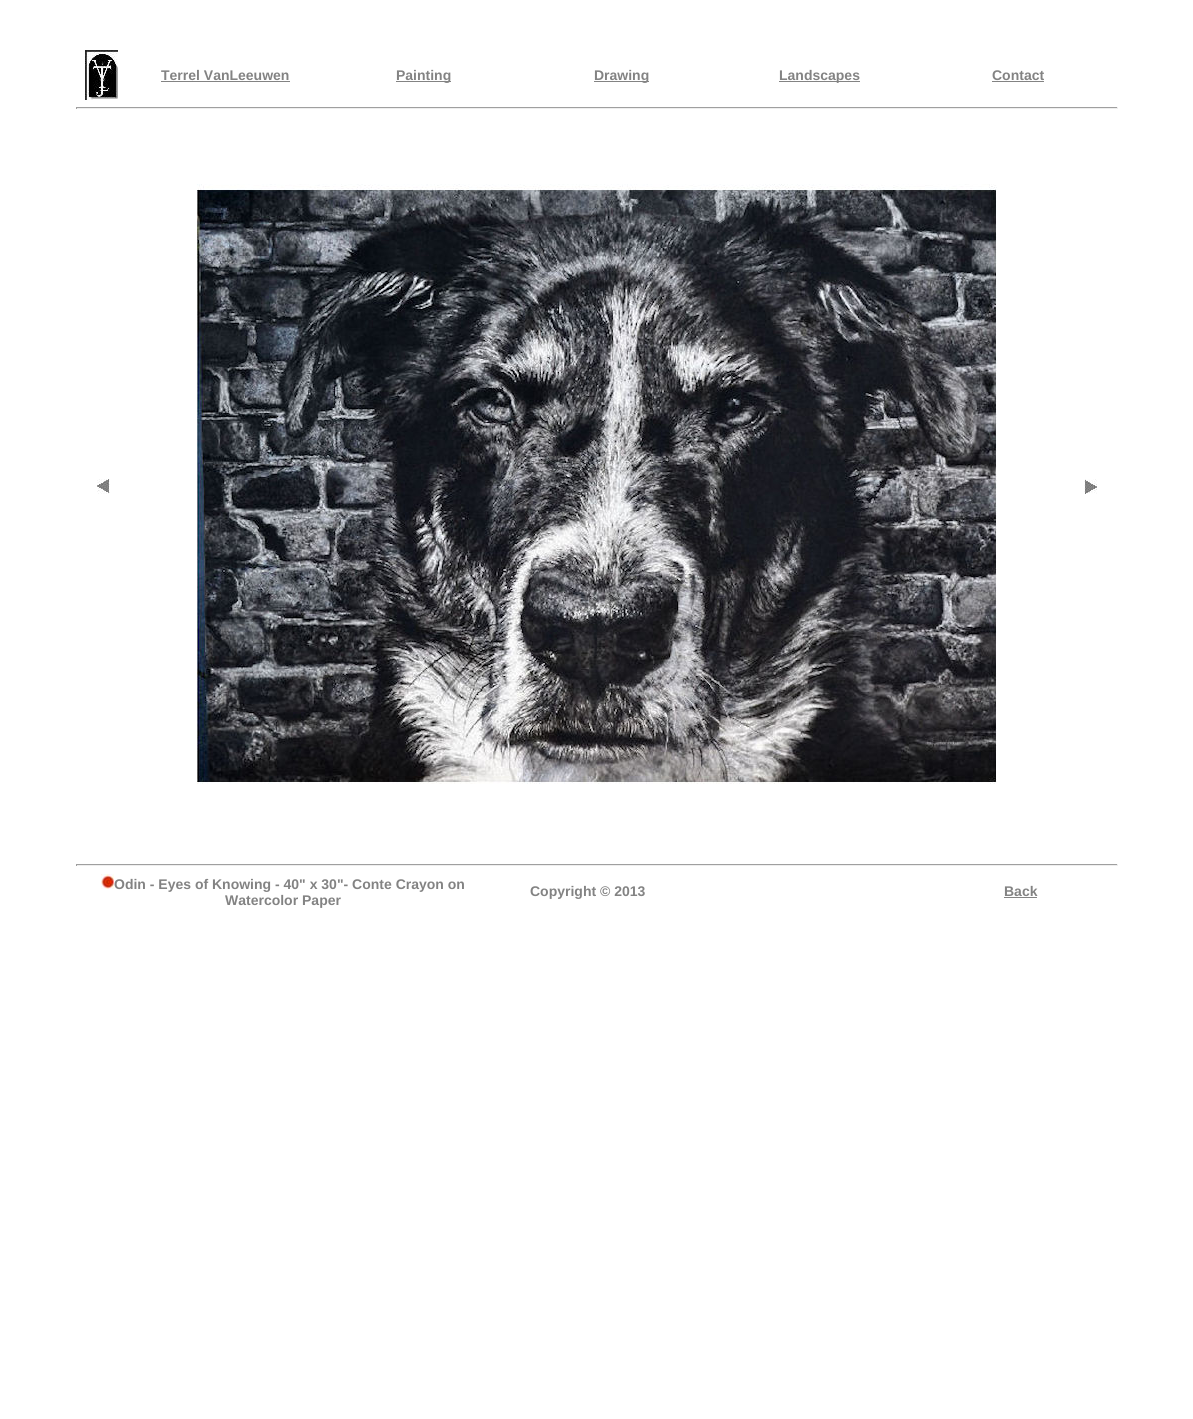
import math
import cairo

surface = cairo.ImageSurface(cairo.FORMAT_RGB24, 1193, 1419)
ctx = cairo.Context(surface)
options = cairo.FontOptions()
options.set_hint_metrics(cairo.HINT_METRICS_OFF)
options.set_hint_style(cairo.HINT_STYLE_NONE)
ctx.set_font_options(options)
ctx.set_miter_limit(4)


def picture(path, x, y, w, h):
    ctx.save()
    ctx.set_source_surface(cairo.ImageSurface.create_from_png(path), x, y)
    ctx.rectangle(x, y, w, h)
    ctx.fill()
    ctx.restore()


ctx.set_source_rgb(1, 1, 1)
ctx.paint()
picture("img1.png", 85, 50, 33, 50)
ctx.select_font_face("Liberation Sans", cairo.FONT_SLANT_NORMAL, cairo.FONT_WEIGHT_BOLD)
ctx.set_font_size(14)
ctx.set_source_rgb(0.514, 0.514, 0.514)
ctx.move_to(161, 80)
ctx.show_text("Terrel VanLeeuwen")
ctx.rectangle(161, 81, 129, 1)
ctx.fill()
ctx.rectangle(396, 81, 55, 1)
ctx.fill()
ctx.move_to(396, 80)
ctx.show_text("Painting")
ctx.rectangle(594, 81, 55, 1)
ctx.fill()
ctx.move_to(594, 80)
ctx.show_text("Drawing")
ctx.rectangle(779, 81, 81, 1)
ctx.fill()
ctx.move_to(779, 80)
ctx.show_text("Landscapes")
ctx.move_to(992, 80)
ctx.show_text("Contact")
ctx.rectangle(992, 81, 52, 1)
ctx.fill()
ctx.set_source_rgb(0.624, 0.624, 0.624)
ctx.rectangle(76, 107, 1042, 1)
ctx.fill()
ctx.set_source_rgb(0.933, 0.933, 0.933)
ctx.rectangle(1117, 107, 1, 2)
ctx.fill()
ctx.rectangle(76, 108, 1042, 1)
ctx.fill()
ctx.set_source_rgb(0.624, 0.624, 0.624)
ctx.rectangle(76, 107, 1, 2)
ctx.fill()
picture("img2.png", 97, 479, 13, 15)
picture("img3.png", 197, 184, 800, 600)
picture("img4.png", 1084, 479, 13, 15)
ctx.rectangle(76, 864, 1042, 1)
ctx.fill()
ctx.set_source_rgb(0.933, 0.933, 0.933)
ctx.rectangle(1117, 864, 1, 2)
ctx.fill()
ctx.rectangle(76, 865, 1042, 1)
ctx.fill()
ctx.set_source_rgb(0.624, 0.624, 0.624)
ctx.rectangle(76, 864, 1, 2)
ctx.fill()
picture("img5.png", 101, 874, 13, 15)
ctx.set_source_rgb(0.514, 0.514, 0.514)
ctx.move_to(114, 889)
ctx.show_text("Odin - Eyes of Knowing - 40\" x 30\"- Conte Crayon on")
ctx.move_to(225, 905)
ctx.show_text("Watercolor Paper")
ctx.move_to(530, 896)
ctx.show_text("Copyright © 2013")
ctx.move_to(1004, 896)
ctx.show_text("Back")
ctx.rectangle(1004, 897, 33, 1)
ctx.fill()
surface.write_to_png("page.png")
